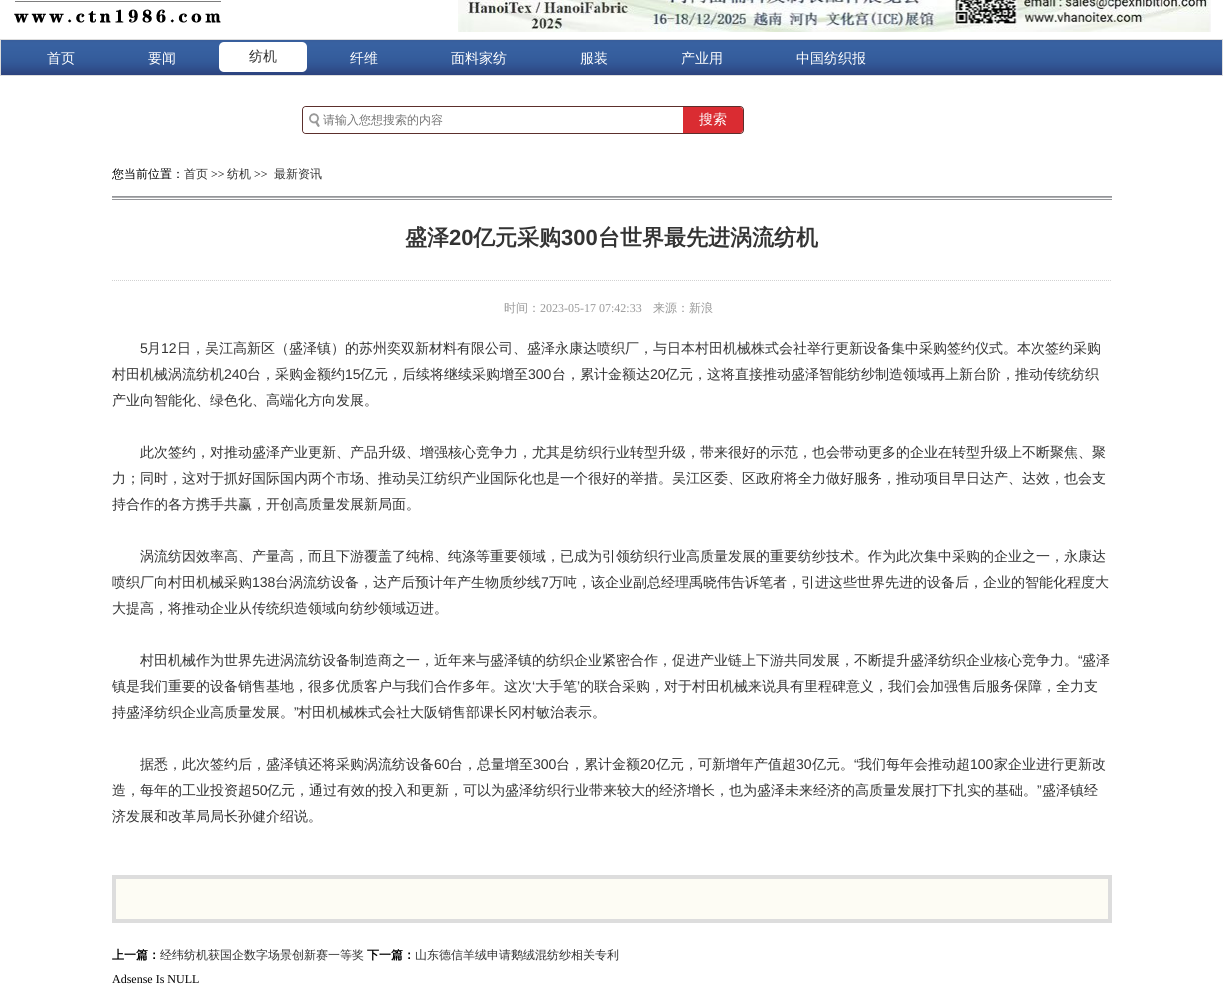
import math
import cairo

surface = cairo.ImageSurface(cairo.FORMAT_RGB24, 1223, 999)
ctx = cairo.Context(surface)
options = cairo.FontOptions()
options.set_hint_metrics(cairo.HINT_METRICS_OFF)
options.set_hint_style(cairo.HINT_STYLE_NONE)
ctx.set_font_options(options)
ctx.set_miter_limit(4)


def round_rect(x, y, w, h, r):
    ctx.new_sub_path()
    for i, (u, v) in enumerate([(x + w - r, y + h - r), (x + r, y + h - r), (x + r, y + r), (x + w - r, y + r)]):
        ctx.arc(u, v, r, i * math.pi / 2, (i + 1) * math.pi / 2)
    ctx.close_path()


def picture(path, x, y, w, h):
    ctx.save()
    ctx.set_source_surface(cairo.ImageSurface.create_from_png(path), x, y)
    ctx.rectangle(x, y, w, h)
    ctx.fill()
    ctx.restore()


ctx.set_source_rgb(1, 1, 1)
ctx.paint()
picture("img1.png", 14, 0, 207, 23)
picture("img2.png", 458, 0, 753, 32)
picture("img3.png", 1, 40, 1221, 35)
ctx.rectangle(0.5, 39.5, 1222, 36)
ctx.set_source_rgb(0.867, 0.867, 0.867)
ctx.set_line_width(1)
ctx.stroke()
ctx.select_font_face("WenQuanYi Zen Hei Medium")
ctx.set_font_size(14)
ctx.set_source_rgb(1, 1, 1)
ctx.move_to(47, 63)
ctx.show_text("首页")
ctx.move_to(148, 63)
ctx.show_text("要闻")
round_rect(219, 42, 88, 30, 5)
ctx.fill()
ctx.set_source_rgb(0.2, 0.2, 0.2)
ctx.move_to(249, 61)
ctx.show_text("纺机")
ctx.set_source_rgb(1, 1, 1)
ctx.move_to(350, 63)
ctx.show_text("纤维")
ctx.move_to(451, 63)
ctx.show_text("面料家纺")
ctx.move_to(580, 63)
ctx.show_text("服装")
ctx.move_to(681, 63)
ctx.show_text("产业用")
ctx.move_to(796, 63)
ctx.show_text("中国纺织报")
round_rect(302.5, 106.5, 441, 27, 3.5)
ctx.set_source_rgb(0.361, 0.184, 0.173)
ctx.stroke()
ctx.set_source_rgb(1, 1, 1)
ctx.new_path()
ctx.move_to(306, 107)
ctx.line_to(683, 107)
ctx.line_to(683, 133)
ctx.line_to(306, 133)
ctx.curve_to(304.5, 133, 303, 131.5, 303, 130)
ctx.line_to(303, 110)
ctx.curve_to(303, 108.5, 304.5, 107, 306, 107)
ctx.close_path()
ctx.fill()
picture("img4.png", 309, 113, 11, 14)
ctx.set_font_size(12)
ctx.set_source_rgb(0.459, 0.459, 0.459)
ctx.move_to(323, 124)
ctx.show_text("请输入您想搜索的内容")
ctx.set_source_rgb(0.855, 0.173, 0.196)
ctx.new_path()
ctx.move_to(683, 107)
ctx.line_to(740, 107)
ctx.curve_to(741.5, 107, 743, 108.5, 743, 110)
ctx.line_to(743, 130)
ctx.curve_to(743, 131.5, 741.5, 133, 740, 133)
ctx.line_to(683, 133)
ctx.close_path()
ctx.fill()
ctx.set_font_size(14)
ctx.set_source_rgb(1, 1, 1)
ctx.move_to(699, 124)
ctx.show_text("搜索")
ctx.set_font_size(12)
ctx.set_source_rgb(0, 0, 0)
ctx.move_to(112, 178)
ctx.show_text("您当前位置：")
ctx.set_source_rgb(0.2, 0.2, 0.2)
ctx.move_to(184, 178)
ctx.show_text("首页")
ctx.select_font_face("Liberation Serif")
ctx.set_source_rgb(0, 0, 0)
ctx.move_to(211, 178)
ctx.show_text(">>")
ctx.select_font_face("WenQuanYi Zen Hei Medium")
ctx.set_source_rgb(0.2, 0.2, 0.2)
ctx.move_to(227, 178)
ctx.show_text("纺机")
ctx.select_font_face("Liberation Serif")
ctx.set_source_rgb(0, 0, 0)
ctx.move_to(254, 178)
ctx.show_text(">>")
ctx.select_font_face("WenQuanYi Zen Hei Medium")
ctx.set_source_rgb(0.2, 0.2, 0.2)
ctx.move_to(274, 178)
ctx.show_text("最新资讯")
picture("img5.png", 112, 196, 1000, 4)
ctx.new_path()
ctx.move_to(112, 280.5)
ctx.line_to(1112, 280.5)
ctx.set_source_rgb(0.824, 0.824, 0.824)
ctx.set_dash([1, 1])
ctx.stroke()
ctx.select_font_face("WenQuanYi Zen Hei", cairo.FONT_SLANT_NORMAL, cairo.FONT_WEIGHT_BOLD)
ctx.set_font_size(22)
ctx.set_source_rgb(0.2, 0.2, 0.2)
ctx.move_to(405, 245)
ctx.show_text("盛泽")
ctx.select_font_face("Liberation Sans", cairo.FONT_SLANT_NORMAL, cairo.FONT_WEIGHT_BOLD)
ctx.move_to(449, 245)
ctx.show_text("20")
ctx.select_font_face("WenQuanYi Zen Hei", cairo.FONT_SLANT_NORMAL, cairo.FONT_WEIGHT_BOLD)
ctx.move_to(473, 245)
ctx.show_text("亿元采购")
ctx.select_font_face("Liberation Sans", cairo.FONT_SLANT_NORMAL, cairo.FONT_WEIGHT_BOLD)
ctx.move_to(561, 245)
ctx.show_text("300")
ctx.select_font_face("WenQuanYi Zen Hei", cairo.FONT_SLANT_NORMAL, cairo.FONT_WEIGHT_BOLD)
ctx.move_to(598, 245)
ctx.show_text("台世界最先进涡流纺机")
ctx.select_font_face("WenQuanYi Zen Hei Medium")
ctx.set_font_size(12)
ctx.set_source_rgb(0.6, 0.6, 0.6)
ctx.move_to(504, 312)
ctx.show_text("时间：")
ctx.select_font_face("Liberation Serif")
ctx.move_to(540, 312)
ctx.show_text("2023-05-17 07:42:33")
ctx.select_font_face("WenQuanYi Zen Hei Medium")
ctx.move_to(653, 312)
ctx.show_text("来源：新浪")
ctx.select_font_face("Liberation Sans")
ctx.set_font_size(14)
ctx.set_source_rgb(0.2, 0.2, 0.2)
ctx.move_to(140, 353)
ctx.show_text("5")
ctx.select_font_face("WenQuanYi Zen Hei Medium")
ctx.move_to(147, 353)
ctx.show_text("月")
ctx.select_font_face("Liberation Sans")
ctx.move_to(161, 353)
ctx.show_text("12")
ctx.select_font_face("WenQuanYi Zen Hei Medium")
ctx.move_to(177, 353)
ctx.show_text("日，吴江高新区（盛泽镇）的苏州奕双新材料有限公司、盛泽永康达喷织厂，与日本村田机械株式会社举行更新设备集中采购签约仪式。本次签约采购")
ctx.move_to(112, 379)
ctx.show_text("村田机械涡流纺机")
ctx.select_font_face("Liberation Sans")
ctx.move_to(224, 379)
ctx.show_text("240")
ctx.select_font_face("WenQuanYi Zen Hei Medium")
ctx.move_to(247, 379)
ctx.show_text("台，采购金额约")
ctx.select_font_face("Liberation Sans")
ctx.move_to(345, 379)
ctx.show_text("15")
ctx.select_font_face("WenQuanYi Zen Hei Medium")
ctx.move_to(360, 379)
ctx.show_text("亿元，后续将继续采购增至")
ctx.select_font_face("Liberation Sans")
ctx.move_to(528, 379)
ctx.show_text("300")
ctx.select_font_face("WenQuanYi Zen Hei Medium")
ctx.move_to(552, 379)
ctx.show_text("台，累计金额达")
ctx.select_font_face("Liberation Sans")
ctx.move_to(650, 379)
ctx.show_text("20")
ctx.select_font_face("WenQuanYi Zen Hei Medium")
ctx.move_to(665, 379)
ctx.show_text("亿元，这将直接推动盛泽智能纺纱制造领域再上新台阶，推动传统纺织")
ctx.move_to(112, 405)
ctx.show_text("产业向智能化、绿色化、高端化方向发展。")
ctx.move_to(140, 457)
ctx.show_text("此次签约，对推动盛泽产业更新、产品升级、增强核心竞争力，尤其是纺织行业转型升级，带来很好的示范，也会带动更多的企业在转型升级上不断聚焦、聚")
ctx.move_to(112, 483)
ctx.show_text("力；同时，这对于抓好国际国内两个市场、推动吴江纺织产业国际化也是一个很好的举措。吴江区委、区政府将全力做好服务，推动项目早日达产、达效，也会支")
ctx.move_to(112, 509)
ctx.show_text("持合作的各方携手共赢，开创高质量发展新局面。")
ctx.move_to(140, 561)
ctx.show_text("涡流纺因效率高、产量高，而且下游覆盖了纯棉、纯涤等重要领域，已成为引领纺织行业高质量发展的重要纺纱技术。作为此次集中采购的企业之一，永康达")
ctx.move_to(112, 587)
ctx.show_text("喷织厂向村田机械采购")
ctx.select_font_face("Liberation Sans")
ctx.move_to(252, 587)
ctx.show_text("138")
ctx.select_font_face("WenQuanYi Zen Hei Medium")
ctx.move_to(275, 587)
ctx.show_text("台涡流纺设备，达产后预计年产生物质纱线")
ctx.select_font_face("Liberation Sans")
ctx.move_to(541, 587)
ctx.show_text("7")
ctx.select_font_face("WenQuanYi Zen Hei Medium")
ctx.move_to(549, 587)
ctx.show_text("万吨，该企业副总经理禹晓伟告诉笔者，引进这些世界先进的设备后，企业的智能化程度大")
ctx.move_to(112, 613)
ctx.show_text("大提高，将推动企业从传统织造领域向纺纱领域迈进。")
ctx.move_to(140, 665)
ctx.show_text("村田机械作为世界先进涡流纺设备制造商之一，近年来与盛泽镇的纺织企业紧密合作，促进产业链上下游共同发展，不断提升盛泽纺织企业核心竞争力。")
ctx.select_font_face("Liberation Sans")
ctx.move_to(1078, 665)
ctx.show_text("“")
ctx.select_font_face("WenQuanYi Zen Hei Medium")
ctx.move_to(1082, 665)
ctx.show_text("盛泽")
ctx.move_to(112, 691)
ctx.show_text("镇是我们重要的设备销售基地，很多优质客户与我们合作多年。这次")
ctx.select_font_face("Liberation Sans")
ctx.move_to(532, 691)
ctx.show_text("‘")
ctx.select_font_face("WenQuanYi Zen Hei Medium")
ctx.move_to(535, 691)
ctx.show_text("大手笔")
ctx.select_font_face("Liberation Sans")
ctx.move_to(577, 691)
ctx.show_text("’")
ctx.select_font_face("WenQuanYi Zen Hei Medium")
ctx.move_to(580, 691)
ctx.show_text("的联合采购，对于村田机械来说具有里程碑意义，我们会加强售后服务保障，全力支")
ctx.move_to(112, 717)
ctx.show_text("持盛泽纺织企业高质量发展。")
ctx.select_font_face("Liberation Sans")
ctx.move_to(294, 717)
ctx.show_text("”")
ctx.select_font_face("WenQuanYi Zen Hei Medium")
ctx.move_to(298, 717)
ctx.show_text("村田机械株式会社大阪销售部课长冈村敏治表示。")
ctx.move_to(140, 769)
ctx.show_text("据悉，此次签约后，盛泽镇还将采购涡流纺设备")
ctx.select_font_face("Liberation Sans")
ctx.move_to(434, 769)
ctx.show_text("60")
ctx.select_font_face("WenQuanYi Zen Hei Medium")
ctx.move_to(449, 769)
ctx.show_text("台，总量增至")
ctx.select_font_face("Liberation Sans")
ctx.move_to(533, 769)
ctx.show_text("300")
ctx.select_font_face("WenQuanYi Zen Hei Medium")
ctx.move_to(556, 769)
ctx.show_text("台，累计金额")
ctx.select_font_face("Liberation Sans")
ctx.move_to(640, 769)
ctx.show_text("20")
ctx.select_font_face("WenQuanYi Zen Hei Medium")
ctx.move_to(656, 769)
ctx.show_text("亿元，可新增年产值超")
ctx.select_font_face("Liberation Sans")
ctx.move_to(796, 769)
ctx.show_text("30")
ctx.select_font_face("WenQuanYi Zen Hei Medium")
ctx.move_to(812, 769)
ctx.show_text("亿元。")
ctx.select_font_face("Liberation Sans")
ctx.move_to(854, 769)
ctx.show_text("“")
ctx.select_font_face("WenQuanYi Zen Hei Medium")
ctx.move_to(858, 769)
ctx.show_text("我们每年会推动超")
ctx.select_font_face("Liberation Sans")
ctx.move_to(970, 769)
ctx.show_text("100")
ctx.select_font_face("WenQuanYi Zen Hei Medium")
ctx.move_to(994, 769)
ctx.show_text("家企业进行更新改")
ctx.move_to(112, 795)
ctx.show_text("造，每年的工业投资超")
ctx.select_font_face("Liberation Sans")
ctx.move_to(252, 795)
ctx.show_text("50")
ctx.select_font_face("WenQuanYi Zen Hei Medium")
ctx.move_to(267, 795)
ctx.show_text("亿元，通过有效的投入和更新，可以为盛泽纺织行业带来较大的经济增长，也为盛泽未来经济的高质量发展打下扎实的基础。")
ctx.select_font_face("Liberation Sans")
ctx.move_to(1037, 795)
ctx.show_text("”")
ctx.select_font_face("WenQuanYi Zen Hei Medium")
ctx.move_to(1042, 795)
ctx.show_text("盛泽镇经")
ctx.move_to(112, 821)
ctx.show_text("济发展和改革局局长孙健介绍说。")
ctx.set_source_rgb(0.992, 0.988, 0.957)
ctx.rectangle(114, 877, 996, 44)
ctx.fill_preserve()
ctx.set_source_rgb(0.867, 0.867, 0.867)
ctx.set_line_width(4)
ctx.set_dash([])
ctx.stroke()
ctx.select_font_face("WenQuanYi Zen Hei", cairo.FONT_SLANT_NORMAL, cairo.FONT_WEIGHT_BOLD)
ctx.set_font_size(12)
ctx.set_source_rgb(0, 0, 0)
ctx.move_to(112, 959)
ctx.show_text("上一篇：")
ctx.select_font_face("WenQuanYi Zen Hei Medium")
ctx.set_source_rgb(0.2, 0.2, 0.2)
ctx.move_to(160, 959)
ctx.show_text("经纬纺机获国企数字场景创新赛一等奖")
ctx.select_font_face("WenQuanYi Zen Hei", cairo.FONT_SLANT_NORMAL, cairo.FONT_WEIGHT_BOLD)
ctx.set_source_rgb(0, 0, 0)
ctx.move_to(367, 959)
ctx.show_text("下一篇：")
ctx.select_font_face("WenQuanYi Zen Hei Medium")
ctx.set_source_rgb(0.2, 0.2, 0.2)
ctx.move_to(415, 959)
ctx.show_text("山东德信羊绒申请鹅绒混纺纱相关专利")
ctx.select_font_face("Liberation Serif")
ctx.set_source_rgb(0, 0, 0)
ctx.move_to(112, 983)
ctx.show_text("Adsense Is NULL")
surface.write_to_png("page.png")
